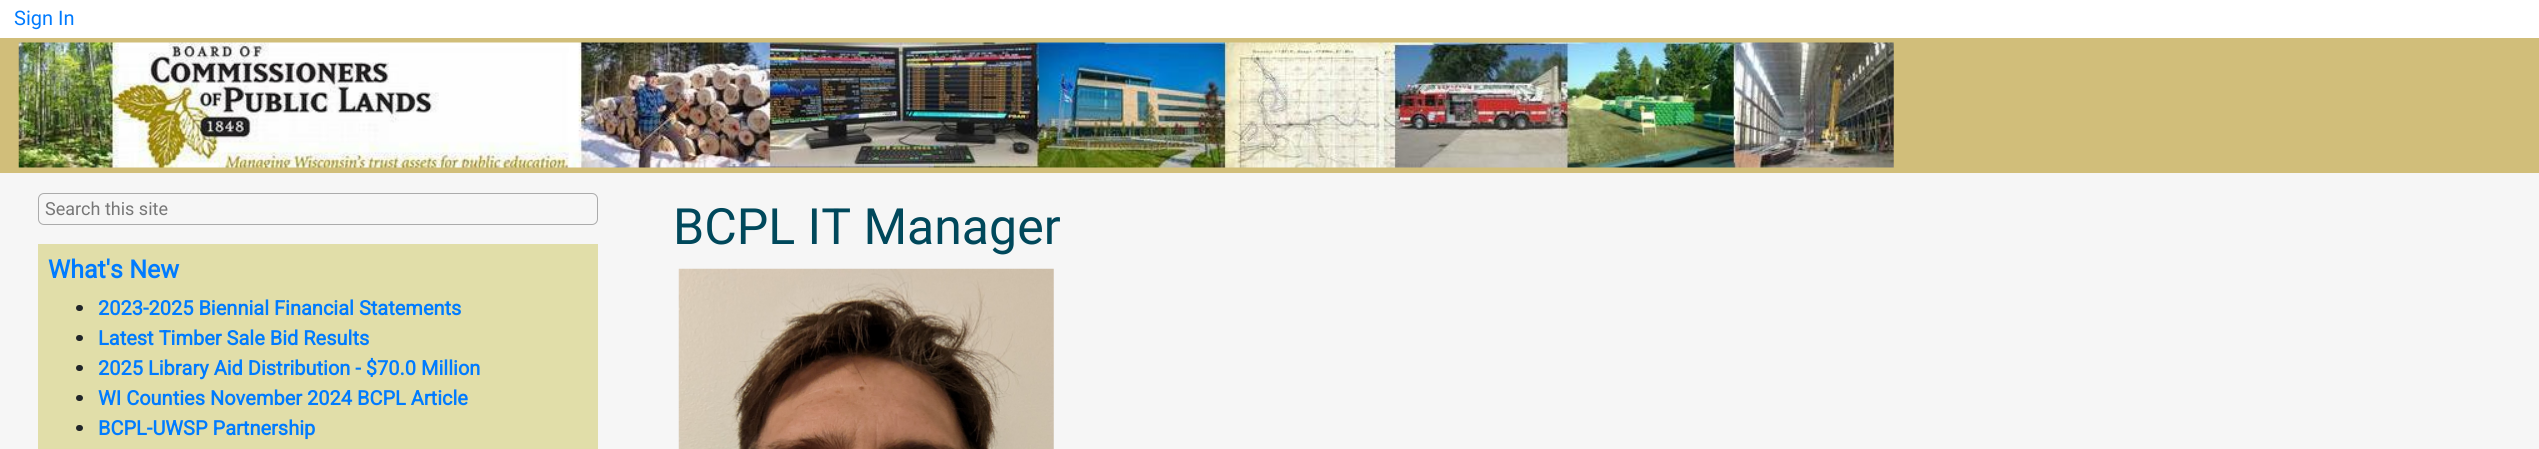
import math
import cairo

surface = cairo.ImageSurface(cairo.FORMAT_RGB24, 2539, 449)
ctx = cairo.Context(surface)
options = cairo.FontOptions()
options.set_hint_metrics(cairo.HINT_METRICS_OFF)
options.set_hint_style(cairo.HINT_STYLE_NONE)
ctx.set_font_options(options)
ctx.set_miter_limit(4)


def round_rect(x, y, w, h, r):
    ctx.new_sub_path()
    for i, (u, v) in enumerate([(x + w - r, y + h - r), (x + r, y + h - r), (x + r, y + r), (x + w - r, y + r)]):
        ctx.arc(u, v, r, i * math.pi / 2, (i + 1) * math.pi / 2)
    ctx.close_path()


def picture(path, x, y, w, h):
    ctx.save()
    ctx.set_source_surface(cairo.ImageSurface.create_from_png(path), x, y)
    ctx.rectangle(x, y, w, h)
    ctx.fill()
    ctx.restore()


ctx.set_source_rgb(1, 1, 1)
ctx.paint()
ctx.select_font_face("Roboto")
ctx.set_font_size(20)
ctx.set_source_rgb(0, 0.482, 1)
ctx.move_to(14, 25)
ctx.show_text("Sign In")
ctx.set_source_rgb(0.961, 0.961, 0.961)
ctx.rectangle(0, 173, 2539, 276)
ctx.fill()
ctx.set_source_rgb(0.82, 0.745, 0.478)
ctx.rectangle(0, 38, 2539, 135)
ctx.fill()
picture("img1.png", 18, 42, 1876, 126)
round_rect(38.5, 193.5, 559, 31, 5.5)
ctx.set_source_rgb(0.671, 0.671, 0.671)
ctx.set_line_width(1)
ctx.stroke()
ctx.set_font_size(18)
ctx.set_source_rgb(0.467, 0.467, 0.467)
ctx.move_to(45, 215)
ctx.show_text("Search this site")
ctx.set_source_rgb(0.882, 0.871, 0.663)
ctx.rectangle(38, 244, 560, 205)
ctx.fill()
ctx.select_font_face("Roboto", cairo.FONT_SLANT_NORMAL, cairo.FONT_WEIGHT_BOLD)
ctx.set_font_size(25)
ctx.set_source_rgb(0, 0.482, 1)
ctx.move_to(48, 278)
ctx.show_text("What's New")
ctx.set_source_rgb(0.129, 0.145, 0.161)
round_rect(76, 305, 7, 6, 3)
ctx.fill()
ctx.set_font_size(20)
ctx.set_source_rgb(0, 0.482, 1)
ctx.move_to(98, 315)
ctx.show_text("2023-2025 Biennial Financial Statements")
ctx.set_source_rgb(0.129, 0.145, 0.161)
round_rect(76, 335, 7, 6, 3)
ctx.fill()
ctx.set_source_rgb(0, 0.482, 1)
ctx.move_to(98, 345)
ctx.show_text("Latest Timber Sale Bid Results")
ctx.set_source_rgb(0.129, 0.145, 0.161)
round_rect(76, 365, 7, 6, 3)
ctx.fill()
ctx.set_source_rgb(0, 0.482, 1)
ctx.move_to(98, 375)
ctx.show_text("2025 Library Aid Distribution - $70.0 Million")
ctx.set_source_rgb(0.129, 0.145, 0.161)
round_rect(76, 395, 7, 6, 3)
ctx.fill()
ctx.set_source_rgb(0, 0.482, 1)
ctx.move_to(98, 405)
ctx.show_text("WI Counties November 2024 BCPL Article")
ctx.set_source_rgb(0.129, 0.145, 0.161)
round_rect(76, 425, 7, 6, 3)
ctx.fill()
ctx.set_source_rgb(0, 0.482, 1)
ctx.move_to(98, 435)
ctx.show_text("BCPL-UWSP Partnership")
ctx.select_font_face("Roboto")
ctx.set_font_size(50)
ctx.set_source_rgb(0, 0.282, 0.357)
ctx.move_to(673, 244)
ctx.show_text("BCPL IT Manager")
picture("img2.png", 678, 268, 376, 181)
surface.write_to_png("page.png")
